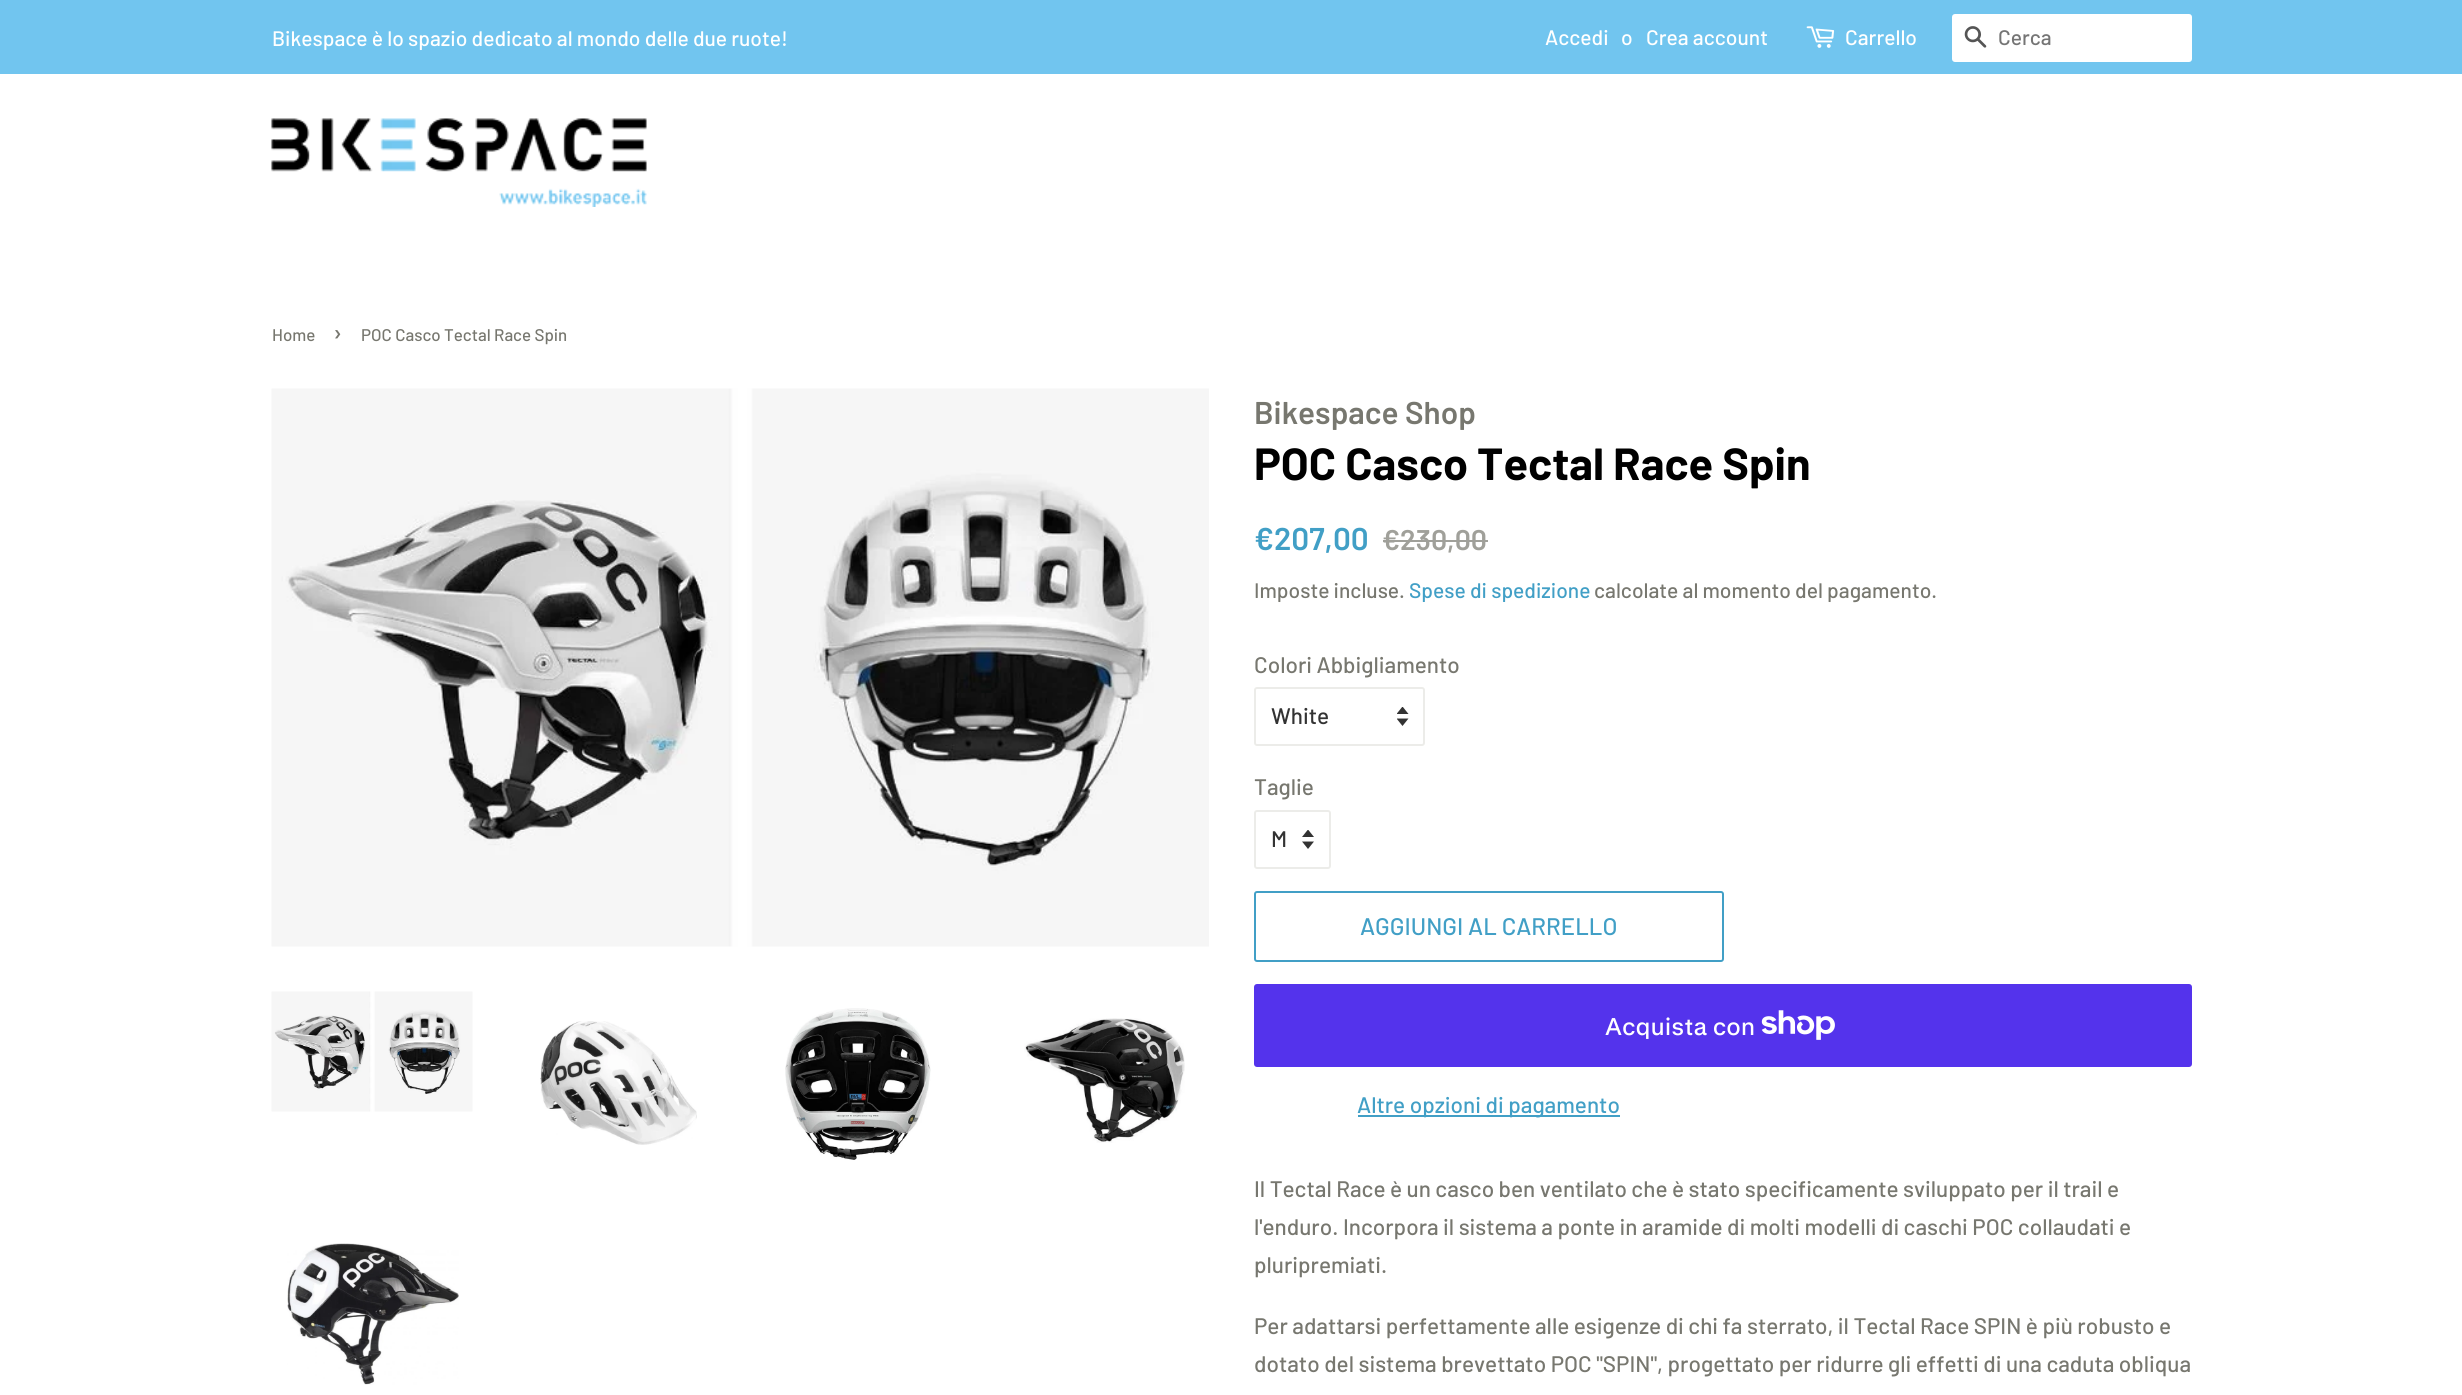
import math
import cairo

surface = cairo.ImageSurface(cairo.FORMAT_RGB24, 2462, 1395)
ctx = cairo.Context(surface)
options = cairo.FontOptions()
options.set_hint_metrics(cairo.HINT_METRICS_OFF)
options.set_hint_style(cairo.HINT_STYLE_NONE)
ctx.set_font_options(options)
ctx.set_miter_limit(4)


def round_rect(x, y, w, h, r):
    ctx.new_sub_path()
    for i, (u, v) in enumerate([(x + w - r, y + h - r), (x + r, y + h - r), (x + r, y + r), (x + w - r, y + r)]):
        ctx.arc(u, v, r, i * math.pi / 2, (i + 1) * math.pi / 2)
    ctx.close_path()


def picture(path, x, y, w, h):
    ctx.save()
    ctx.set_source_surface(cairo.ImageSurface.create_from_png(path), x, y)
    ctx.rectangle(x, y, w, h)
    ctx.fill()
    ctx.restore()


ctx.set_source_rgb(1, 1, 1)
ctx.paint()
ctx.set_source_rgb(0.443, 0.773, 0.937)
ctx.rectangle(0, 0, 2462, 74)
ctx.fill()
ctx.select_font_face("Barlow Medium")
ctx.set_font_size(21)
ctx.set_source_rgb(1, 1, 1)
ctx.move_to(272, 46)
ctx.show_text("Bikespace è lo spazio dedicato al mondo delle due ruote!")
ctx.move_to(1545, 45)
ctx.show_text("Accedi")
ctx.move_to(1621, 45)
ctx.show_text("o")
ctx.move_to(1646, 45)
ctx.show_text("Crea account")
picture("img1.png", 1806, 26, 29, 22)
ctx.move_to(1845, 45)
ctx.show_text("Carrello")
round_rect(1952, 14, 240, 48, 3)
ctx.fill()
picture("img2.png", 1964, 26, 23, 22)
ctx.set_source_rgb(0.459, 0.459, 0.459)
ctx.move_to(1998, 45)
ctx.show_text("Cerca")
picture("img3.png", 271, 118, 376, 89)
ctx.set_font_size(16.9)
ctx.set_source_rgb(0.467, 0.467, 0.435)
ctx.move_to(272, 341)
ctx.show_text("Home")
ctx.set_font_size(24)
ctx.move_to(333, 341)
ctx.show_text("›")
ctx.set_font_size(16.9)
ctx.move_to(361, 341)
ctx.show_text("POC Casco Tectal Race Spin")
picture("img4.png", 271, 388, 938, 559)
picture("img5.png", 271, 991, 202, 121)
picture("img6.png", 540, 1021, 157, 124)
picture("img7.png", 785, 1008, 146, 152)
picture("img8.png", 1024, 1018, 161, 125)
picture("img9.png", 287, 1243, 172, 142)
ctx.select_font_face("Barlow SemiBold")
ctx.set_font_size(31.5)
ctx.move_to(1254, 424)
ctx.show_text("Bikespace Shop")
ctx.select_font_face("Barlow", cairo.FONT_SLANT_NORMAL, cairo.FONT_WEIGHT_BOLD)
ctx.set_font_size(45)
ctx.set_source_rgb(0, 0, 0)
ctx.move_to(1254, 480)
ctx.show_text("POC Casco Tectal Race Spin")
ctx.select_font_face("Barlow SemiBold")
ctx.set_font_size(31.5)
ctx.set_source_rgb(0.255, 0.624, 0.776)
ctx.move_to(1254, 550)
ctx.show_text("€207,00")
ctx.set_font_size(28.5)
ctx.set_source_rgb(0.627, 0.627, 0.604)
ctx.move_to(1382, 550)
ctx.show_text("€230,00")
ctx.rectangle(1383, 540, 105, 2)
ctx.fill()
ctx.select_font_face("Barlow Medium")
ctx.set_font_size(21)
ctx.set_source_rgb(0.467, 0.467, 0.435)
ctx.move_to(1254, 598)
ctx.show_text("Imposte incluse.")
ctx.set_source_rgb(0.255, 0.624, 0.776)
ctx.move_to(1409, 598)
ctx.show_text("Spese di spedizione")
ctx.set_source_rgb(0.467, 0.467, 0.435)
ctx.move_to(1594, 598)
ctx.show_text("calcolate al momento del pagamento.")
ctx.set_font_size(22.5)
ctx.move_to(1254, 673)
ctx.show_text("Colori Abbigliamento")
picture("img10.png", 1397, 707, 12, 19)
round_rect(1255, 688, 169, 57, 2)
ctx.set_source_rgb(0.922, 0.922, 0.914)
ctx.stroke()
ctx.set_source_rgb(0.2, 0.2, 0.2)
ctx.move_to(1271, 724)
ctx.show_text("White")
ctx.set_source_rgb(0.467, 0.467, 0.435)
ctx.move_to(1254, 795)
ctx.show_text("Taglie")
picture("img11.png", 1302, 830, 12, 19)
round_rect(1255, 811, 75, 57, 2)
ctx.set_source_rgb(0.922, 0.922, 0.914)
ctx.stroke()
ctx.set_source_rgb(0.2, 0.2, 0.2)
ctx.move_to(1271, 847)
ctx.show_text("M")
round_rect(1255, 892, 468, 69, 2)
ctx.set_source_rgb(0.255, 0.624, 0.776)
ctx.stroke()
ctx.set_font_size(24)
ctx.move_to(1360, 935)
ctx.show_text("AGGIUNGI AL CARRELLO")
ctx.set_source_rgb(0.329, 0.2, 0.922)
round_rect(1254, 984, 938, 83, 3)
ctx.fill()
ctx.select_font_face("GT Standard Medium")
ctx.set_source_rgb(1, 1, 1)
ctx.move_to(1605, 1035)
ctx.show_text("Acquista con")
picture("img12.png", 1761, 1010, 74, 30)
ctx.set_source_rgb(0.255, 0.624, 0.776)
ctx.rectangle(1358, 1115, 262, 2)
ctx.fill()
ctx.select_font_face("Barlow Medium")
ctx.set_font_size(22.5)
ctx.move_to(1357, 1113)
ctx.show_text("Altre opzioni di pagamento")
ctx.set_source_rgb(0.467, 0.467, 0.435)
ctx.move_to(1254, 1197)
ctx.show_text("Il Tectal Race è un casco ben ventilato che è stato specificamente sviluppato per il trail e")
ctx.move_to(1254, 1235)
ctx.show_text("l'enduro. Incorpora il sistema a ponte in aramide di molti modelli di caschi POC collaudati e")
ctx.move_to(1254, 1273)
ctx.show_text("pluripremiati.")
ctx.move_to(1254, 1334)
ctx.show_text("Per adattarsi perfettamente alle esigenze di chi fa sterrato, il Tectal Race SPIN è più robusto e")
ctx.move_to(1254, 1372)
ctx.show_text("dotato del sistema brevettato POC \"SPIN\", progettato per ridurre gli effetti di una caduta obliqua")
surface.write_to_png("page.png")
